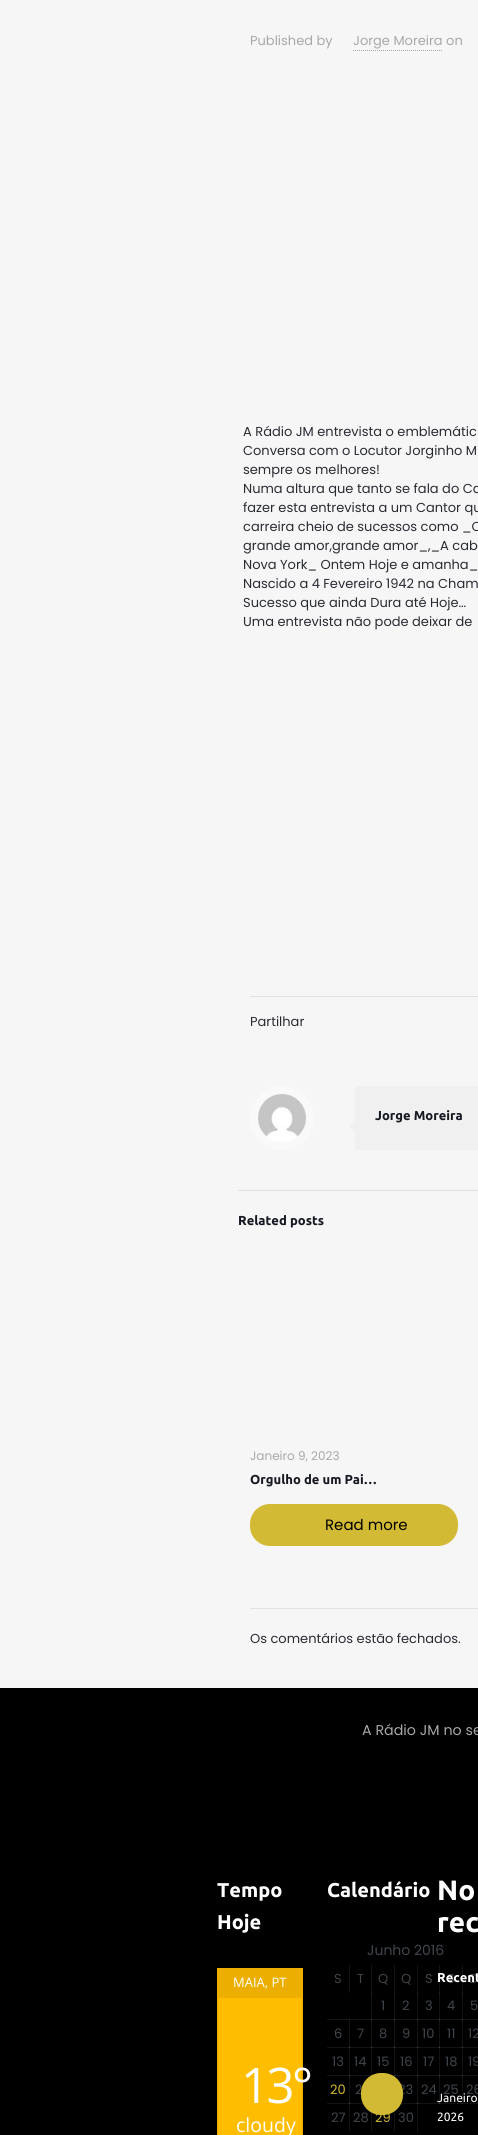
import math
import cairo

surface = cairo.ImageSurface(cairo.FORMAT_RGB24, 478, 2135)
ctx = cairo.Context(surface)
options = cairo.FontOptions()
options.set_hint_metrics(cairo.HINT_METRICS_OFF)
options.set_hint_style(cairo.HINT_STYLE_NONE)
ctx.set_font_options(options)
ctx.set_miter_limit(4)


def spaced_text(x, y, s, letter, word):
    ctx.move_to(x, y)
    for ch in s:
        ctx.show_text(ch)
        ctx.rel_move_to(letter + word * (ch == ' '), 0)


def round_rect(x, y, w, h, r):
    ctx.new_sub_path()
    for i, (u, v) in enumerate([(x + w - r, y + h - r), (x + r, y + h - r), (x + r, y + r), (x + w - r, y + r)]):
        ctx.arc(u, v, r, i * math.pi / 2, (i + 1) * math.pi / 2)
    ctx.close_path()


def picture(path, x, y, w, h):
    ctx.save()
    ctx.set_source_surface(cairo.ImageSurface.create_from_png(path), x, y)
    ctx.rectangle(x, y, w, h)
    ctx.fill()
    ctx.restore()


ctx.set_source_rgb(0.961, 0.961, 0.961)
ctx.paint()
ctx.select_font_face("Poppins")
ctx.set_font_size(13)
ctx.set_source_rgb(0.659, 0.659, 0.659)
ctx.move_to(250, 45)
ctx.show_text("Published by")
ctx.move_to(353, 45)
ctx.show_text("Jorge Moreira on")
ctx.new_path()
ctx.move_to(353, 50.5)
ctx.line_to(442, 50.5)
ctx.set_line_width(1)
ctx.set_dash([1, 1])
ctx.stroke()
ctx.set_source_rgb(0.161, 0.169, 0.2)
ctx.move_to(243, 436)
ctx.show_text("A Rádio JM entrevista o emblemátic")
ctx.move_to(243, 455)
ctx.show_text("Conversa com o Locutor Jorginho M")
ctx.move_to(243, 474)
ctx.show_text("sempre os melhores!")
ctx.move_to(243, 493)
ctx.show_text("Numa altura que tanto se fala do Ca")
ctx.move_to(243, 512)
ctx.show_text("fazer esta entrevista a um Cantor qu")
ctx.move_to(243, 531)
ctx.show_text("carreira cheio de sucessos como _O")
ctx.move_to(243, 550)
ctx.show_text("grande amor,grande amor_,_A cab")
ctx.move_to(243, 569)
ctx.show_text("Nova York_ Ontem Hoje e amanha_")
ctx.move_to(243, 588)
ctx.show_text("Nascido a 4 Fevereiro 1942 na Cham")
ctx.move_to(243, 607)
ctx.show_text("Sucesso que ainda Dura até Hoje…")
ctx.move_to(243, 626)
ctx.show_text("Uma entrevista não pode deixar de")
ctx.set_source_rgb(0.882, 0.882, 0.882)
ctx.rectangle(250, 996, 228, 1)
ctx.fill()
ctx.set_source_rgb(0.161, 0.169, 0.2)
ctx.move_to(250, 1026)
ctx.show_text("Partilhar")
ctx.new_path()
ctx.arc(282, 1118, 28, 0, 2 * math.pi)
ctx.set_source_rgb(0.973, 0.973, 0.973)
ctx.set_line_width(8)
ctx.set_dash([])
ctx.stroke()
picture("img1.png", 258, 1094, 48, 48)
ctx.set_source_rgb(0.941, 0.941, 0.941)
ctx.rectangle(355, 1086, 123, 64)
ctx.fill()
ctx.select_font_face("Ubuntu", cairo.FONT_SLANT_NORMAL, cairo.FONT_WEIGHT_BOLD)
ctx.set_source_rgb(0.086, 0.098, 0.133)
ctx.move_to(375, 1120)
ctx.show_text("Jorge Moreira")
ctx.set_source_rgb(0.941, 0.941, 0.941)
ctx.new_path()
ctx.move_to(355, 1121)
ctx.line_to(355, 1133)
ctx.line_to(349, 1127)
ctx.close_path()
ctx.fill()
ctx.set_source_rgb(0.882, 0.882, 0.882)
ctx.rectangle(238, 1190, 240, 1)
ctx.fill()
ctx.set_source_rgb(0.086, 0.098, 0.133)
ctx.move_to(238, 1225)
ctx.show_text("Related posts")
ctx.select_font_face("Poppins")
ctx.set_font_size(12)
ctx.set_source_rgb(0.659, 0.659, 0.659)
ctx.move_to(250, 1460)
ctx.show_text("Janeiro 9, 2023")
ctx.select_font_face("Ubuntu", cairo.FONT_SLANT_NORMAL, cairo.FONT_WEIGHT_BOLD)
ctx.set_font_size(13)
ctx.set_source_rgb(0.086, 0.098, 0.133)
ctx.move_to(250, 1484)
ctx.show_text("Orgulho de um Pai…")
ctx.set_source_rgb(0.827, 0.729, 0.204)
round_rect(250, 1504, 208, 42, 20)
ctx.fill()
ctx.select_font_face("Poppins")
ctx.set_font_size(15)
ctx.set_source_rgb(0, 0, 0)
ctx.move_to(325, 1530)
ctx.show_text("Read more")
ctx.set_source_rgb(0.882, 0.882, 0.882)
ctx.rectangle(250, 1608, 228, 1)
ctx.fill()
ctx.set_font_size(13)
ctx.set_source_rgb(0.161, 0.169, 0.2)
ctx.move_to(250, 1643)
ctx.show_text("Os comentários estão fechados.")
ctx.set_source_rgb(0, 0, 0)
ctx.rectangle(0, 1688, 478, 447)
ctx.fill()
ctx.set_source_rgb(0.078, 0.078, 0.078)
ctx.rectangle(371, 1965, 1, 28)
ctx.fill()
ctx.rectangle(394, 1965, 1, 28)
ctx.fill()
ctx.rectangle(417, 1965, 1, 28)
ctx.fill()
ctx.rectangle(439, 1965, 1, 28)
ctx.fill()
ctx.rectangle(462, 1965, 1, 28)
ctx.fill()
ctx.rectangle(327, 2019, 45, 1)
ctx.fill()
ctx.rectangle(371, 1992, 1, 28)
ctx.fill()
ctx.set_source_rgb(0.153, 0.153, 0.153)
ctx.rectangle(371, 1992, 1, 1)
ctx.fill()
ctx.set_source_rgb(0.078, 0.078, 0.078)
ctx.rectangle(371, 2019, 24, 1)
ctx.fill()
ctx.rectangle(394, 1992, 1, 28)
ctx.fill()
ctx.set_source_rgb(0.153, 0.153, 0.153)
ctx.rectangle(394, 1992, 1, 1)
ctx.fill()
ctx.set_source_rgb(0.078, 0.078, 0.078)
ctx.rectangle(394, 2019, 24, 1)
ctx.fill()
ctx.rectangle(417, 1992, 1, 28)
ctx.fill()
ctx.set_source_rgb(0.153, 0.153, 0.153)
ctx.rectangle(417, 1992, 1, 1)
ctx.fill()
ctx.set_source_rgb(0.078, 0.078, 0.078)
ctx.rectangle(417, 2019, 23, 1)
ctx.fill()
ctx.rectangle(439, 1992, 1, 28)
ctx.fill()
ctx.set_source_rgb(0.153, 0.153, 0.153)
ctx.rectangle(439, 1992, 1, 1)
ctx.fill()
ctx.set_source_rgb(0.078, 0.078, 0.078)
ctx.rectangle(439, 2019, 24, 1)
ctx.fill()
ctx.rectangle(462, 1992, 1, 28)
ctx.fill()
ctx.set_source_rgb(0.153, 0.153, 0.153)
ctx.rectangle(462, 1992, 1, 1)
ctx.fill()
ctx.set_source_rgb(0.078, 0.078, 0.078)
ctx.rectangle(462, 2019, 16, 1)
ctx.fill()
ctx.rectangle(327, 2047, 23, 1)
ctx.fill()
ctx.rectangle(349, 2019, 1, 29)
ctx.fill()
ctx.set_source_rgb(0.153, 0.153, 0.153)
ctx.rectangle(349, 2019, 1, 1)
ctx.fill()
ctx.set_source_rgb(0.078, 0.078, 0.078)
ctx.rectangle(349, 2047, 23, 1)
ctx.fill()
ctx.rectangle(371, 2019, 1, 29)
ctx.fill()
ctx.set_source_rgb(0.282, 0.282, 0.282)
ctx.rectangle(371, 2019, 1, 1)
ctx.fill()
ctx.set_source_rgb(0.078, 0.078, 0.078)
ctx.rectangle(371, 2047, 24, 1)
ctx.fill()
ctx.rectangle(394, 2019, 1, 29)
ctx.fill()
ctx.set_source_rgb(0.282, 0.282, 0.282)
ctx.rectangle(394, 2019, 1, 1)
ctx.fill()
ctx.set_source_rgb(0.078, 0.078, 0.078)
ctx.rectangle(394, 2047, 24, 1)
ctx.fill()
ctx.rectangle(417, 2019, 1, 29)
ctx.fill()
ctx.set_source_rgb(0.282, 0.282, 0.282)
ctx.rectangle(417, 2019, 1, 1)
ctx.fill()
ctx.set_source_rgb(0.078, 0.078, 0.078)
ctx.rectangle(417, 2047, 23, 1)
ctx.fill()
ctx.rectangle(439, 2019, 1, 29)
ctx.fill()
ctx.set_source_rgb(0.282, 0.282, 0.282)
ctx.rectangle(439, 2019, 1, 1)
ctx.fill()
ctx.set_source_rgb(0.078, 0.078, 0.078)
ctx.rectangle(439, 2047, 24, 1)
ctx.fill()
ctx.rectangle(462, 2019, 1, 29)
ctx.fill()
ctx.set_source_rgb(0.282, 0.282, 0.282)
ctx.rectangle(462, 2019, 1, 1)
ctx.fill()
ctx.set_source_rgb(0.078, 0.078, 0.078)
ctx.rectangle(462, 2047, 16, 1)
ctx.fill()
ctx.rectangle(327, 2075, 23, 1)
ctx.fill()
ctx.rectangle(349, 2047, 1, 29)
ctx.fill()
ctx.set_source_rgb(0.282, 0.282, 0.282)
ctx.rectangle(349, 2047, 1, 1)
ctx.fill()
ctx.set_source_rgb(0.078, 0.078, 0.078)
ctx.rectangle(349, 2075, 23, 1)
ctx.fill()
ctx.rectangle(371, 2047, 1, 29)
ctx.fill()
ctx.set_source_rgb(0.282, 0.282, 0.282)
ctx.rectangle(371, 2047, 1, 1)
ctx.fill()
ctx.set_source_rgb(0.078, 0.078, 0.078)
ctx.rectangle(371, 2075, 24, 1)
ctx.fill()
ctx.rectangle(394, 2047, 1, 29)
ctx.fill()
ctx.set_source_rgb(0.282, 0.282, 0.282)
ctx.rectangle(394, 2047, 1, 1)
ctx.fill()
ctx.set_source_rgb(0.078, 0.078, 0.078)
ctx.rectangle(394, 2075, 24, 1)
ctx.fill()
ctx.rectangle(417, 2047, 1, 29)
ctx.fill()
ctx.set_source_rgb(0.282, 0.282, 0.282)
ctx.rectangle(417, 2047, 1, 1)
ctx.fill()
ctx.set_source_rgb(0.078, 0.078, 0.078)
ctx.rectangle(417, 2075, 23, 1)
ctx.fill()
ctx.rectangle(439, 2047, 1, 29)
ctx.fill()
ctx.set_source_rgb(0.282, 0.282, 0.282)
ctx.rectangle(439, 2047, 1, 1)
ctx.fill()
ctx.set_source_rgb(0.078, 0.078, 0.078)
ctx.rectangle(439, 2075, 24, 1)
ctx.fill()
ctx.rectangle(462, 2047, 1, 29)
ctx.fill()
ctx.set_source_rgb(0.282, 0.282, 0.282)
ctx.rectangle(462, 2047, 1, 1)
ctx.fill()
ctx.set_source_rgb(0.078, 0.078, 0.078)
ctx.rectangle(462, 2075, 16, 1)
ctx.fill()
ctx.rectangle(327, 2103, 23, 1)
ctx.fill()
ctx.rectangle(349, 2075, 1, 29)
ctx.fill()
ctx.set_source_rgb(0.282, 0.282, 0.282)
ctx.rectangle(349, 2075, 1, 1)
ctx.fill()
ctx.set_source_rgb(0.078, 0.078, 0.078)
ctx.rectangle(349, 2103, 23, 1)
ctx.fill()
ctx.set_source_rgb(0.282, 0.282, 0.282)
ctx.rectangle(371, 2075, 1, 1)
ctx.fill()
ctx.set_source_rgb(0.078, 0.078, 0.078)
ctx.rectangle(394, 2075, 1, 2)
ctx.fill()
ctx.set_source_rgb(0.282, 0.282, 0.282)
ctx.rectangle(394, 2075, 1, 1)
ctx.fill()
ctx.set_source_rgb(0.078, 0.078, 0.078)
ctx.rectangle(394, 2103, 24, 1)
ctx.fill()
ctx.rectangle(417, 2075, 1, 29)
ctx.fill()
ctx.set_source_rgb(0.282, 0.282, 0.282)
ctx.rectangle(417, 2075, 1, 1)
ctx.fill()
ctx.set_source_rgb(0.078, 0.078, 0.078)
ctx.rectangle(417, 2103, 23, 1)
ctx.fill()
ctx.rectangle(439, 2075, 1, 29)
ctx.fill()
ctx.set_source_rgb(0.282, 0.282, 0.282)
ctx.rectangle(439, 2075, 1, 1)
ctx.fill()
ctx.set_source_rgb(0.078, 0.078, 0.078)
ctx.rectangle(439, 2103, 24, 1)
ctx.fill()
ctx.set_source_rgb(0.22, 0.22, 0.22)
ctx.rectangle(439, 2103, 1, 1)
ctx.fill()
ctx.set_source_rgb(0.078, 0.078, 0.078)
ctx.rectangle(462, 2075, 1, 29)
ctx.fill()
ctx.set_source_rgb(0.282, 0.282, 0.282)
ctx.rectangle(462, 2075, 1, 1)
ctx.fill()
ctx.set_font_size(14.25)
ctx.set_source_rgb(0.659, 0.659, 0.659)
ctx.move_to(362, 1735)
ctx.show_text("A Rádio JM no se")
ctx.select_font_face("Ubuntu", cairo.FONT_SLANT_NORMAL, cairo.FONT_WEIGHT_BOLD)
ctx.set_font_size(28)
ctx.set_source_rgb(1, 1, 1)
ctx.move_to(437, 1900)
ctx.show_text("No")
ctx.move_to(437, 1932)
ctx.show_text("rec")
ctx.select_font_face("Poppins")
ctx.set_font_size(13)
ctx.set_source_rgb(0.267, 0.267, 0.267)
ctx.move_to(447, 1983)
ctx.show_text("S")
ctx.move_to(469, 1983)
ctx.show_text("D")
ctx.select_font_face("Ubuntu", cairo.FONT_SLANT_NORMAL, cairo.FONT_WEIGHT_BOLD)
ctx.set_source_rgb(1, 1, 1)
ctx.move_to(437, 1982)
ctx.show_text("Recent")
ctx.select_font_face("Ubuntu")
ctx.set_font_size(12)
ctx.move_to(437, 2102)
ctx.show_text("Janeiro")
ctx.move_to(437, 2121)
ctx.show_text("2026")
ctx.select_font_face("Ubuntu", cairo.FONT_SLANT_NORMAL, cairo.FONT_WEIGHT_BOLD)
ctx.set_font_size(20)
ctx.move_to(217, 1897)
ctx.show_text("Tempo")
ctx.move_to(217, 1929)
ctx.show_text("Hoje")
ctx.set_source_rgb(1, 0.741, 0)
ctx.rectangle(218, 1998, 84, 137)
ctx.fill()
ctx.rectangle(217.5, 1968.5, 85, 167)
ctx.set_source_rgb(0.933, 0.675, 0)
ctx.set_line_width(1)
ctx.stroke()
ctx.set_source_rgb(0.925, 0.686, 0)
ctx.rectangle(218, 1969, 84, 28)
ctx.fill()
ctx.set_source_rgb(0.933, 0.675, 0)
ctx.rectangle(218, 1997, 84, 1)
ctx.fill()
ctx.select_font_face("Open Sans")
ctx.set_font_size(13)
ctx.set_source_rgb(1, 1, 1)
ctx.move_to(233, 1987)
ctx.show_text("MAIA, PT")
ctx.set_font_size(49)
spaced_text(241, 2103, "13°", -2.5, 0)
ctx.set_font_size(19.5)
ctx.move_to(236, 2132)
ctx.show_text("cloudy")
ctx.select_font_face("Ubuntu", cairo.FONT_SLANT_NORMAL, cairo.FONT_WEIGHT_BOLD)
ctx.set_font_size(20)
ctx.move_to(327, 1897)
ctx.show_text("Calendário")
ctx.select_font_face("Poppins")
ctx.set_font_size(14)
ctx.set_source_rgb(0.251, 0.275, 0.302)
ctx.move_to(367, 1955)
ctx.show_text("Junho 2016")
ctx.set_source_rgb(0.078, 0.078, 0.078)
ctx.rectangle(349, 1965, 1, 28)
ctx.fill()
ctx.set_font_size(13)
ctx.set_source_rgb(0.267, 0.267, 0.267)
ctx.move_to(334, 1983)
ctx.show_text("S")
ctx.move_to(357, 1983)
ctx.show_text("T")
ctx.move_to(378, 1983)
ctx.show_text("Q")
ctx.move_to(401, 1983)
ctx.show_text("Q")
ctx.move_to(425, 1983)
ctx.show_text("S")
ctx.set_source_rgb(0.251, 0.275, 0.302)
ctx.move_to(381, 2010)
ctx.show_text("1")
ctx.move_to(402, 2010)
ctx.show_text("2")
ctx.move_to(425, 2010)
ctx.show_text("3")
ctx.move_to(447, 2010)
ctx.show_text("4")
ctx.move_to(470, 2010)
ctx.show_text("5")
ctx.move_to(334, 2038)
ctx.show_text("6")
ctx.move_to(357, 2038)
ctx.show_text("7")
ctx.move_to(379, 2038)
ctx.show_text("8")
ctx.move_to(402, 2038)
ctx.show_text("9")
ctx.move_to(422, 2038)
ctx.show_text("10")
ctx.move_to(447, 2038)
ctx.show_text("11")
ctx.move_to(468, 2038)
ctx.show_text("12")
ctx.move_to(332, 2066)
ctx.show_text("13")
ctx.move_to(354, 2066)
ctx.show_text("14")
ctx.move_to(377, 2066)
ctx.show_text("15")
ctx.move_to(400, 2066)
ctx.show_text("16")
ctx.move_to(423, 2066)
ctx.show_text("17")
ctx.move_to(445, 2066)
ctx.show_text("18")
ctx.move_to(468, 2066)
ctx.show_text("19")
ctx.set_source_rgb(0.827, 0.729, 0.204)
ctx.move_to(330, 2094)
ctx.show_text("20")
ctx.set_source_rgb(0.251, 0.275, 0.302)
ctx.move_to(355, 2094)
ctx.show_text("2")
ctx.move_to(398, 2094)
ctx.show_text("23")
ctx.move_to(421, 2094)
ctx.show_text("24")
ctx.move_to(443, 2094)
ctx.show_text("25")
ctx.set_source_rgb(0.078, 0.078, 0.078)
ctx.rectangle(462, 2103, 16, 1)
ctx.fill()
ctx.set_source_rgb(0.22, 0.22, 0.22)
ctx.rectangle(462, 2103, 1, 1)
ctx.fill()
ctx.set_source_rgb(0.251, 0.275, 0.302)
ctx.move_to(466, 2094)
ctx.show_text("26")
ctx.set_source_rgb(0.078, 0.078, 0.078)
ctx.rectangle(349, 2103, 1, 29)
ctx.fill()
ctx.set_source_rgb(0.282, 0.282, 0.282)
ctx.rectangle(349, 2103, 1, 1)
ctx.fill()
ctx.set_source_rgb(0.251, 0.275, 0.302)
ctx.move_to(331, 2122)
ctx.show_text("27")
ctx.set_source_rgb(0.078, 0.078, 0.078)
ctx.rectangle(371, 2112, 1, 20)
ctx.fill()
ctx.set_source_rgb(0.251, 0.275, 0.302)
ctx.move_to(353, 2122)
ctx.show_text("28")
ctx.set_source_rgb(0.078, 0.078, 0.078)
ctx.rectangle(394, 2103, 1, 29)
ctx.fill()
ctx.set_source_rgb(0.827, 0.729, 0.204)
ctx.move_to(375, 2122)
ctx.show_text("29")
ctx.set_source_rgb(0.078, 0.078, 0.078)
ctx.rectangle(417, 2103, 1, 29)
ctx.fill()
ctx.set_source_rgb(0.282, 0.282, 0.282)
ctx.rectangle(417, 2103, 1, 1)
ctx.fill()
ctx.set_source_rgb(0.251, 0.275, 0.302)
ctx.move_to(398, 2122)
ctx.show_text("30")
ctx.set_source_rgb(0.827, 0.729, 0.204)
round_rect(361, 2073, 42, 42, 20)
ctx.fill()
surface.write_to_png("page.png")
